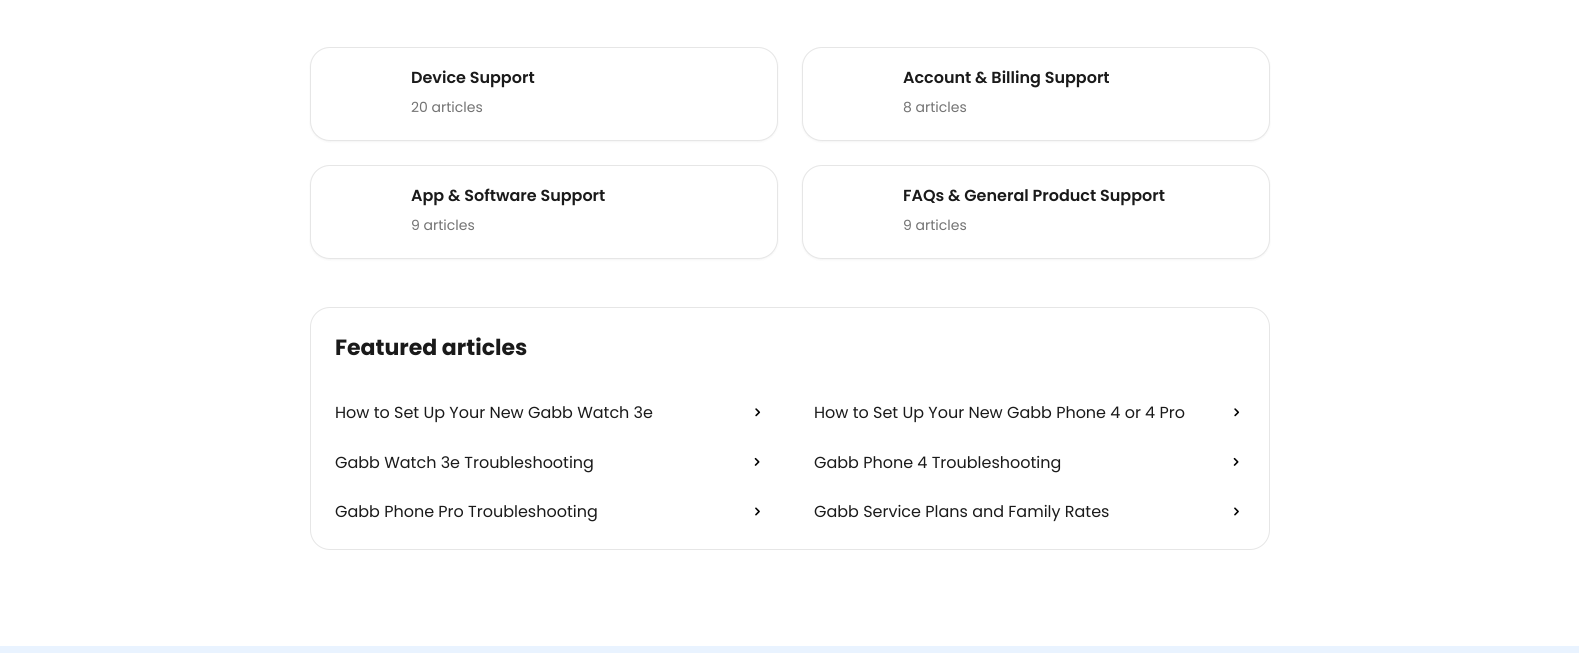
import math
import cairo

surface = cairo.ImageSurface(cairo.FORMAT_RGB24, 1579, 653)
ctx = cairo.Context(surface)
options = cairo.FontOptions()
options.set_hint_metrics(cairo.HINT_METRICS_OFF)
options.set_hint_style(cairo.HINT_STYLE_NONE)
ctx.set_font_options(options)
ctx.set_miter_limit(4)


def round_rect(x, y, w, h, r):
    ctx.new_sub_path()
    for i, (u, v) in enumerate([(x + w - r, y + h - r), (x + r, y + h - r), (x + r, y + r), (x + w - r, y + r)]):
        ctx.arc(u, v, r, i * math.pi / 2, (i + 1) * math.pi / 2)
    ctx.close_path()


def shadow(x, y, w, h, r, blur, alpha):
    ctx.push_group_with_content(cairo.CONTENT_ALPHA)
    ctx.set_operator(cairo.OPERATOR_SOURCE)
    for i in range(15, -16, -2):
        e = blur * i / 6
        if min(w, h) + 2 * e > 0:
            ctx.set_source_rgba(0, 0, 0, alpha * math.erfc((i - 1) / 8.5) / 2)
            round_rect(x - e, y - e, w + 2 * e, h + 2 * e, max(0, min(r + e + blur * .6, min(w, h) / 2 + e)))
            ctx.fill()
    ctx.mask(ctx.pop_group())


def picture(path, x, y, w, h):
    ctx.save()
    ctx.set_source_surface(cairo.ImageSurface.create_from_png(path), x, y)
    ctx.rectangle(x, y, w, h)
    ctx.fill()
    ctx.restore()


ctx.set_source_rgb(1, 1, 1)
ctx.paint()
ctx.set_source_rgb(0, 0, 0)
shadow(310, 48, 468, 94, 20, 1, 0.05)
ctx.set_source_rgb(1, 1, 1)
round_rect(310.5, 47.5, 467, 93, 19.5)
ctx.fill_preserve()
ctx.set_source_rgb(0.902, 0.902, 0.902)
ctx.set_line_width(1)
ctx.stroke()
ctx.select_font_face("Poppins SemiBold")
ctx.set_font_size(16)
ctx.set_source_rgb(0.102, 0.102, 0.102)
ctx.move_to(411, 83)
ctx.show_text("Device Support")
ctx.select_font_face("Poppins")
ctx.set_font_size(14)
ctx.set_source_rgb(0.451, 0.451, 0.451)
ctx.move_to(411, 112)
ctx.show_text("20 articles")
ctx.set_source_rgb(0, 0, 0)
shadow(802, 48, 468, 94, 20, 1, 0.05)
ctx.set_source_rgb(1, 1, 1)
round_rect(802.5, 47.5, 467, 93, 19.5)
ctx.fill_preserve()
ctx.set_source_rgb(0.902, 0.902, 0.902)
ctx.stroke()
ctx.select_font_face("Poppins SemiBold")
ctx.set_font_size(16)
ctx.set_source_rgb(0.102, 0.102, 0.102)
ctx.move_to(903, 83)
ctx.show_text("Account & Billing Support")
ctx.select_font_face("Poppins")
ctx.set_font_size(14)
ctx.set_source_rgb(0.451, 0.451, 0.451)
ctx.move_to(903, 112)
ctx.show_text("8 articles")
ctx.set_source_rgb(0, 0, 0)
shadow(310, 166, 468, 94, 20, 1, 0.05)
ctx.set_source_rgb(1, 1, 1)
round_rect(310.5, 165.5, 467, 93, 19.5)
ctx.fill_preserve()
ctx.set_source_rgb(0.902, 0.902, 0.902)
ctx.stroke()
ctx.select_font_face("Poppins SemiBold")
ctx.set_font_size(16)
ctx.set_source_rgb(0.102, 0.102, 0.102)
ctx.move_to(411, 201)
ctx.show_text("App & Software Support")
ctx.select_font_face("Poppins")
ctx.set_font_size(14)
ctx.set_source_rgb(0.451, 0.451, 0.451)
ctx.move_to(411, 230)
ctx.show_text("9 articles")
ctx.set_source_rgb(0, 0, 0)
shadow(802, 166, 468, 94, 20, 1, 0.05)
ctx.set_source_rgb(1, 1, 1)
round_rect(802.5, 165.5, 467, 93, 19.5)
ctx.fill_preserve()
ctx.set_source_rgb(0.902, 0.902, 0.902)
ctx.stroke()
ctx.select_font_face("Poppins SemiBold")
ctx.set_font_size(16)
ctx.set_source_rgb(0.102, 0.102, 0.102)
ctx.move_to(903, 201)
ctx.show_text("FAQs & General Product Support")
ctx.select_font_face("Poppins")
ctx.set_font_size(14)
ctx.set_source_rgb(0.451, 0.451, 0.451)
ctx.move_to(903, 230)
ctx.show_text("9 articles")
round_rect(310.5, 307.5, 959, 242, 19.5)
ctx.set_source_rgb(0.902, 0.902, 0.902)
ctx.stroke()
ctx.select_font_face("Poppins", cairo.FONT_SLANT_NORMAL, cairo.FONT_WEIGHT_BOLD)
ctx.set_font_size(22)
ctx.set_source_rgb(0.102, 0.102, 0.102)
ctx.move_to(335, 355)
ctx.show_text("Featured articles")
ctx.select_font_face("Poppins")
ctx.set_font_size(16)
ctx.move_to(335, 418)
ctx.show_text("How to Set Up Your New Gabb Watch 3e")
picture("img1.png", 755, 408, 6, 9)
ctx.move_to(814, 418)
ctx.show_text("How to Set Up Your New Gabb Phone 4 or 4 Pro")
picture("img1.png", 1234, 408, 6, 9)
ctx.move_to(335, 468)
ctx.show_text("Gabb Watch 3e Troubleshooting")
picture("img2.png", 754, 457, 6, 9)
ctx.move_to(814, 468)
ctx.show_text("Gabb Phone 4 Troubleshooting")
picture("img2.png", 1233, 457, 6, 9)
ctx.move_to(335, 517)
ctx.show_text("Gabb Phone Pro Troubleshooting")
picture("img3.png", 755, 507, 5, 9)
ctx.move_to(814, 517)
ctx.show_text("Gabb Service Plans and Family Rates")
picture("img3.png", 1234, 507, 5, 9)
ctx.set_source_rgb(0.914, 0.953, 1)
ctx.rectangle(0, 646, 1579, 7)
ctx.fill()
surface.write_to_png("page.png")
